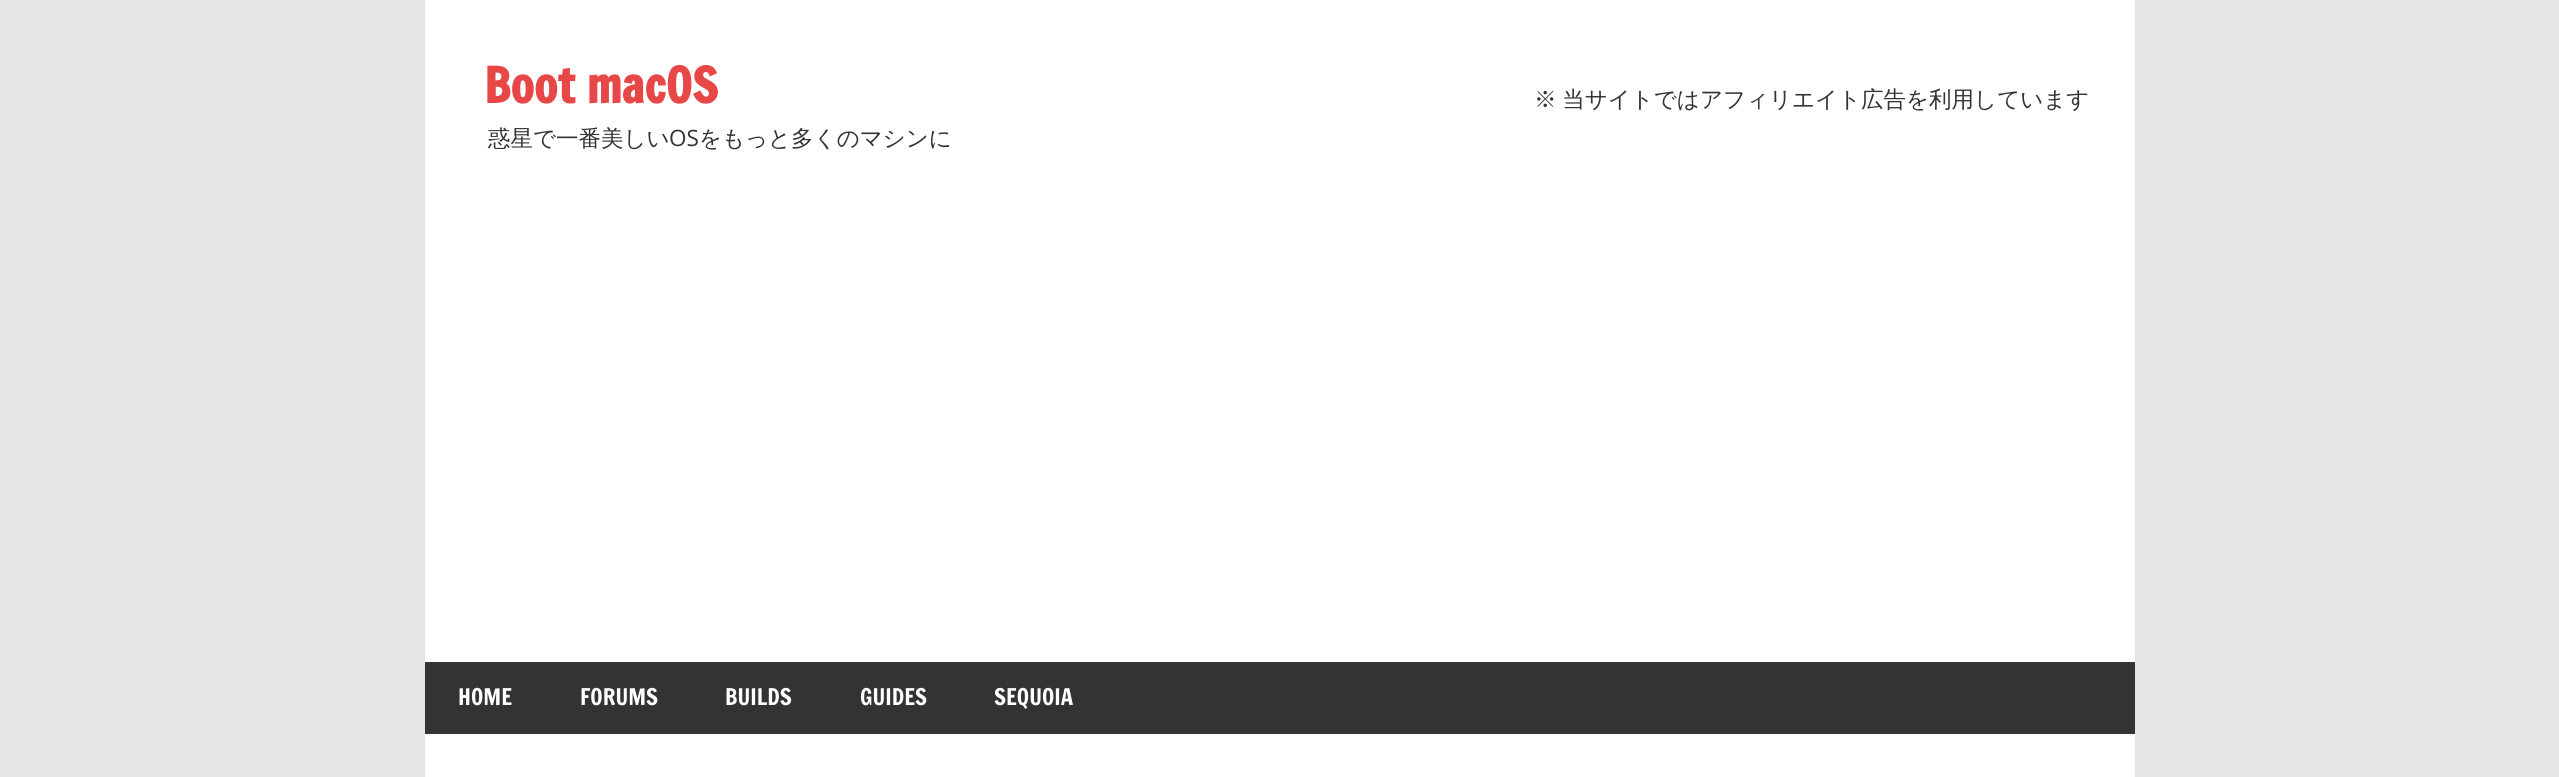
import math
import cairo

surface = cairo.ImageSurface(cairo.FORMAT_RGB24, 2559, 777)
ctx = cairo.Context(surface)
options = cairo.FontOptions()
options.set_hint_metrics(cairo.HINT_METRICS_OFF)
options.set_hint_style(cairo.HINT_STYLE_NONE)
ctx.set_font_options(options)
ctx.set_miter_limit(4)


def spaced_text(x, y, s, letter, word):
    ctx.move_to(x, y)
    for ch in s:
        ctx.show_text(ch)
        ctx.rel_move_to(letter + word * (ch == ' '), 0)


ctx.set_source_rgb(0.898, 0.898, 0.898)
ctx.paint()
ctx.set_source_rgb(1, 1, 1)
ctx.rectangle(425, 0, 1710, 777)
ctx.fill()
ctx.select_font_face("Francois One", cairo.FONT_SLANT_NORMAL, cairo.FONT_WEIGHT_BOLD)
ctx.set_font_size(48)
ctx.set_source_rgb(0.91, 0.278, 0.278)
ctx.move_to(484, 103)
ctx.show_text("Boot macOS")
ctx.select_font_face("WenQuanYi Zen Hei Medium")
ctx.set_font_size(22.5)
ctx.set_source_rgb(0.2, 0.2, 0.2)
ctx.move_to(488, 146)
ctx.show_text("惑星で一番美しい")
ctx.select_font_face("Open Sans")
ctx.move_to(669, 146)
ctx.show_text("OS")
ctx.select_font_face("WenQuanYi Zen Hei Medium")
ctx.move_to(699, 146)
ctx.show_text("をもっと多くのマシンに")
spaced_text(1534, 107, "※ 当サイトではアフィリエイト広告を利用しています", 0, -1)
ctx.rectangle(425, 662, 1710, 72)
ctx.fill()
ctx.select_font_face("Francois One")
ctx.set_source_rgb(1, 1, 1)
ctx.move_to(458, 705)
ctx.show_text("HOME")
ctx.move_to(580, 705)
ctx.show_text("FORUMS")
ctx.move_to(725, 705)
ctx.show_text("BUILDS")
ctx.move_to(860, 705)
ctx.show_text("GUIDES")
ctx.move_to(994, 705)
ctx.show_text("SEQUOIA")
surface.write_to_png("page.png")
